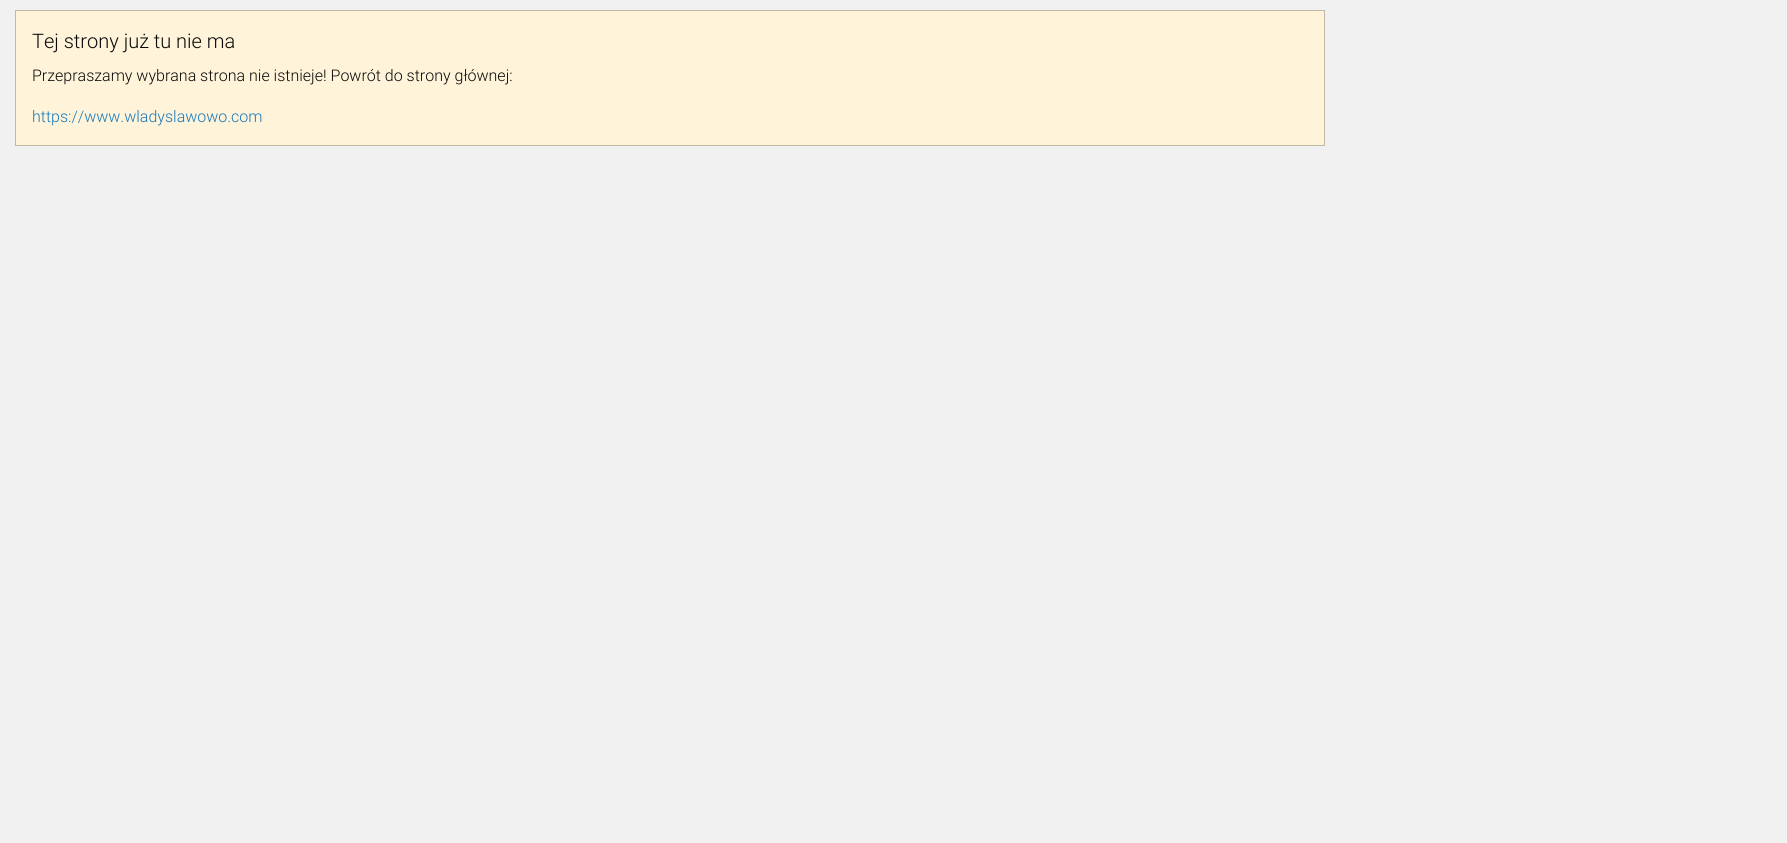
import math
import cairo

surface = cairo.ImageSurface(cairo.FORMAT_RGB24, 1787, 843)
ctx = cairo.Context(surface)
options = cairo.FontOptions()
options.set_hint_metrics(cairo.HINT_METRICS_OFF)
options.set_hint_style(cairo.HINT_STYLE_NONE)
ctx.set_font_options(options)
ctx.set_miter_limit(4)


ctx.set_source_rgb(0.945, 0.945, 0.945)
ctx.paint()
ctx.set_source_rgb(1, 0.953, 0.851)
ctx.rectangle(15.5, 10.5, 1309, 135)
ctx.fill_preserve()
ctx.set_source_rgb(0.761, 0.725, 0.647)
ctx.set_line_width(1)
ctx.stroke()
ctx.select_font_face("Roboto Light")
ctx.set_font_size(20)
ctx.set_source_rgb(0.039, 0.039, 0.039)
ctx.move_to(32, 48)
ctx.show_text("Tej strony już tu nie ma")
ctx.set_font_size(16)
ctx.move_to(32, 81)
ctx.show_text("Przepraszamy wybrana strona nie istnieje! Powrót do strony głównej:")
ctx.set_source_rgb(0.09, 0.475, 0.729)
ctx.move_to(32, 122)
ctx.show_text("https://www.wladyslawowo.com")
surface.write_to_png("page.png")
